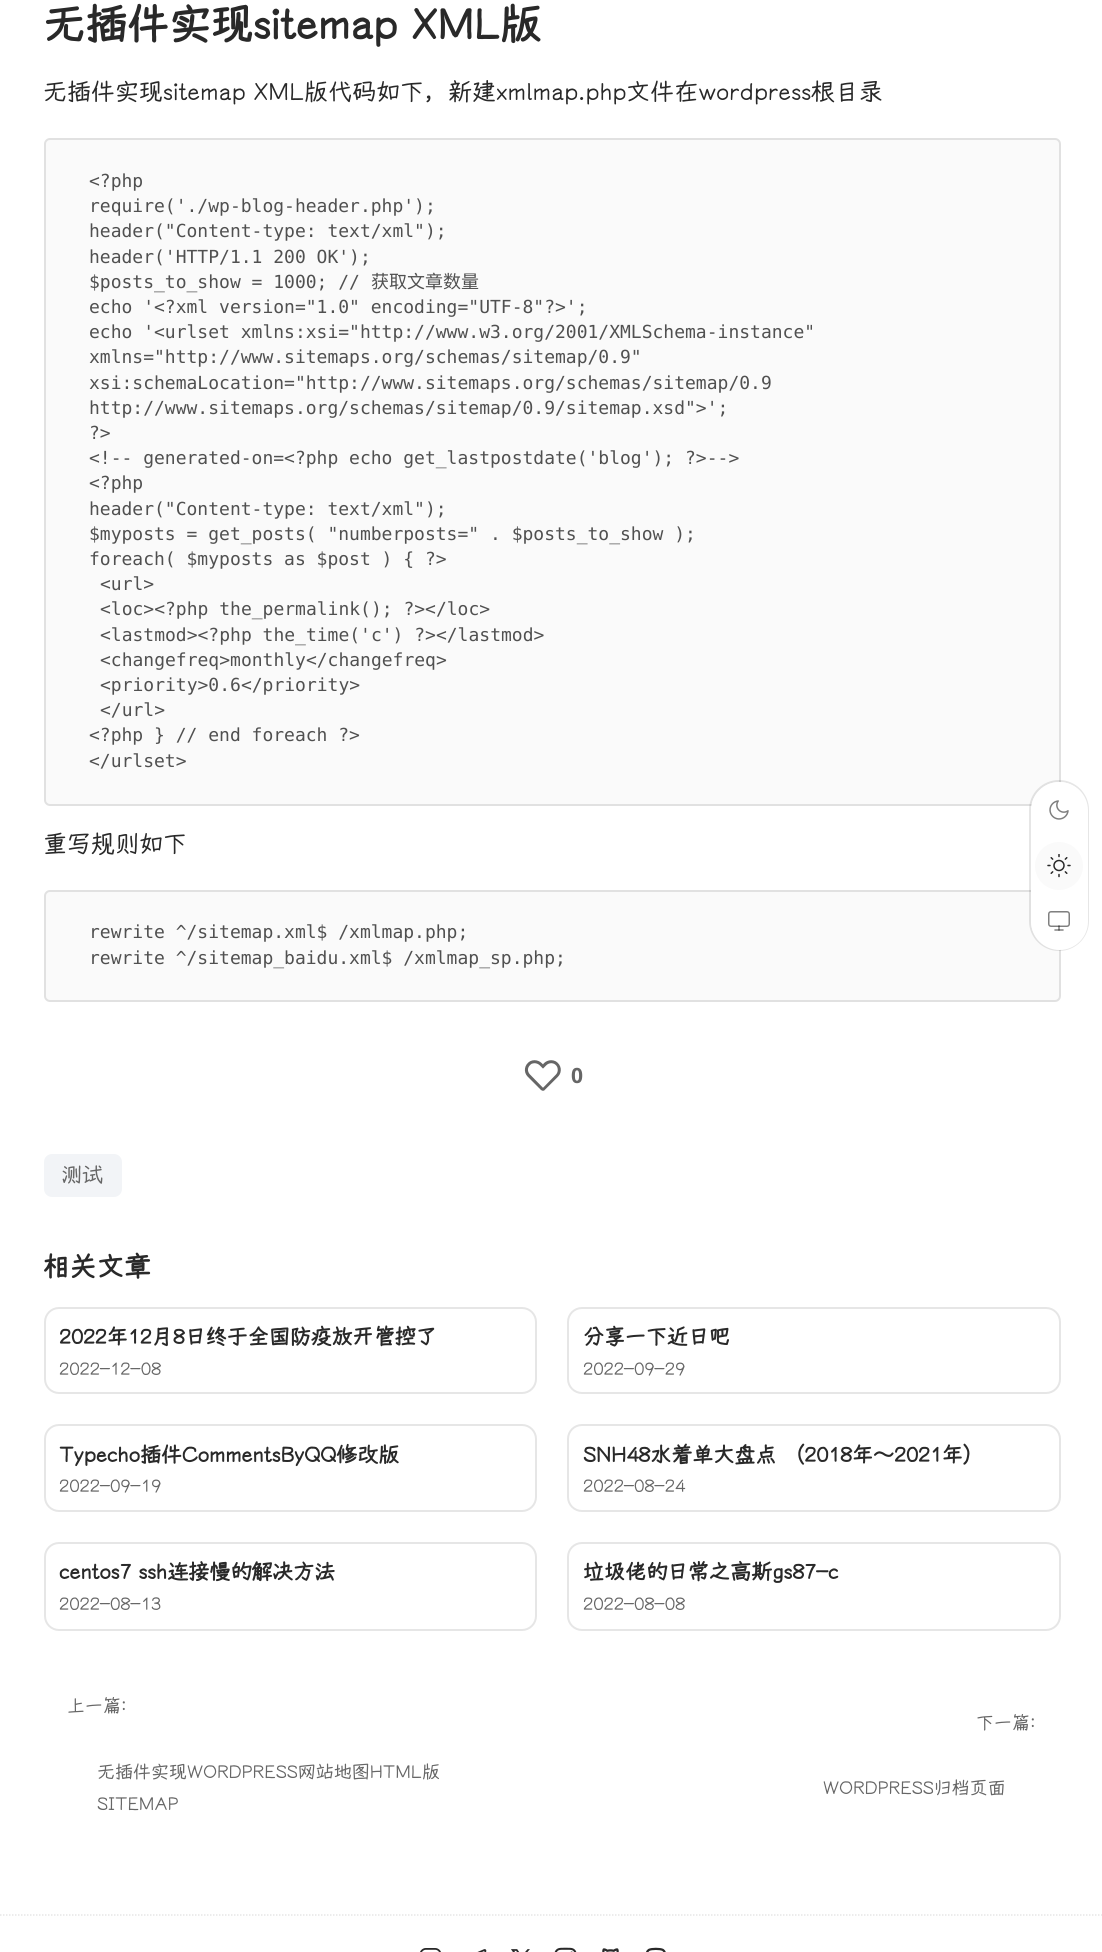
import math
import cairo

surface = cairo.ImageSurface(cairo.FORMAT_RGB24, 1102, 1952)
ctx = cairo.Context(surface)
options = cairo.FontOptions()
options.set_hint_metrics(cairo.HINT_METRICS_OFF)
options.set_hint_style(cairo.HINT_STYLE_NONE)
ctx.set_font_options(options)
ctx.set_miter_limit(4)


def round_rect(x, y, w, h, r):
    ctx.new_sub_path()
    for i, (u, v) in enumerate([(x + w - r, y + h - r), (x + r, y + h - r), (x + r, y + r), (x + w - r, y + r)]):
        ctx.arc(u, v, r, i * math.pi / 2, (i + 1) * math.pi / 2)
    ctx.close_path()


def picture(path, x, y, w, h):
    ctx.save()
    ctx.set_source_surface(cairo.ImageSurface.create_from_png(path), x, y)
    ctx.rectangle(x, y, w, h)
    ctx.fill()
    ctx.restore()


ctx.set_source_rgb(1, 1, 1)
ctx.paint()
ctx.select_font_face("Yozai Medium", cairo.FONT_SLANT_NORMAL, cairo.FONT_WEIGHT_BOLD)
ctx.set_font_size(42)
ctx.set_source_rgb(0.161, 0.161, 0.161)
ctx.move_to(43, 39)
ctx.show_text("无插件实现sitemap XML版")
ctx.select_font_face("Yozai Medium Medium")
ctx.set_font_size(24)
ctx.move_to(43, 100)
ctx.show_text("无插件实现sitemap XML版代码如下，新建xmlmap.php文件在wordpress根目录")
ctx.set_source_rgb(0.98, 0.98, 0.98)
round_rect(45, 139, 1015, 666, 5)
ctx.fill_preserve()
ctx.set_source_rgb(0.882, 0.882, 0.882)
ctx.stroke()
ctx.select_font_face("DejaVu Sans Mono")
ctx.set_font_size(18)
ctx.set_source_rgb(0.314, 0.314, 0.314)
ctx.move_to(89, 187)
ctx.show_text("<?php")
ctx.move_to(89, 212)
ctx.show_text("require('./wp-blog-header.php');")
ctx.move_to(89, 237)
ctx.show_text("header(\"Content-type: text/xml\");")
ctx.move_to(89, 263)
ctx.show_text("header('HTTP/1.1 200 OK');")
ctx.move_to(89, 288)
ctx.show_text("$posts_to_show = 1000; //")
ctx.select_font_face("Noto Sans CJK SC")
ctx.move_to(371, 288)
ctx.show_text("获取文章数量")
ctx.select_font_face("DejaVu Sans Mono")
ctx.move_to(89, 313)
ctx.show_text("echo '<?xml version=\"1.0\" encoding=\"UTF-8\"?>';")
ctx.move_to(89, 338)
ctx.show_text("echo '<urlset xmlns:xsi=\"http://www.w3.org/2001/XMLSchema-instance\"")
ctx.move_to(89, 363)
ctx.show_text("xmlns=\"http://www.sitemaps.org/schemas/sitemap/0.9\"")
ctx.move_to(89, 389)
ctx.show_text("xsi:schemaLocation=\"http://www.sitemaps.org/schemas/sitemap/0.9")
ctx.move_to(89, 414)
ctx.show_text("http://www.sitemaps.org/schemas/sitemap/0.9/sitemap.xsd\">';")
ctx.move_to(89, 439)
ctx.show_text("?>")
ctx.move_to(89, 464)
ctx.show_text("<!-- generated-on=<?php echo get_lastpostdate('blog'); ?>-->")
ctx.move_to(89, 489)
ctx.show_text("<?php")
ctx.move_to(89, 515)
ctx.show_text("header(\"Content-type: text/xml\");")
ctx.move_to(89, 540)
ctx.show_text("$myposts = get_posts( \"numberposts=\" . $posts_to_show );")
ctx.move_to(89, 565)
ctx.show_text("foreach( $myposts as $post ) { ?>")
ctx.move_to(100, 590)
ctx.show_text("<url>")
ctx.move_to(100, 615)
ctx.show_text("<loc><?php the_permalink(); ?></loc>")
ctx.move_to(100, 641)
ctx.show_text("<lastmod><?php the_time('c') ?></lastmod>")
ctx.move_to(100, 666)
ctx.show_text("<changefreq>monthly</changefreq>")
ctx.move_to(100, 691)
ctx.show_text("<priority>0.6</priority>")
ctx.move_to(100, 716)
ctx.show_text("</url>")
ctx.move_to(89, 741)
ctx.show_text("<?php } // end foreach ?>")
ctx.move_to(89, 767)
ctx.show_text("</urlset>")
ctx.select_font_face("Yozai Medium Medium")
ctx.set_font_size(24)
ctx.set_source_rgb(0.161, 0.161, 0.161)
ctx.move_to(43, 852)
ctx.show_text("重写规则如下")
ctx.set_source_rgb(0.98, 0.98, 0.98)
round_rect(45, 891, 1015, 110, 5)
ctx.fill_preserve()
ctx.set_source_rgb(0.882, 0.882, 0.882)
ctx.stroke()
ctx.select_font_face("DejaVu Sans Mono")
ctx.set_font_size(18)
ctx.set_source_rgb(0.314, 0.314, 0.314)
ctx.move_to(89, 938)
ctx.show_text("rewrite ^/sitemap.xml$ /xmlmap.php;")
ctx.move_to(89, 964)
ctx.show_text("rewrite ^/sitemap_baidu.xml$ /xmlmap_sp.php;")
picture("img1.png", 524, 1060, 37, 31)
ctx.select_font_face("Open Sans", cairo.FONT_SLANT_NORMAL, cairo.FONT_WEIGHT_BOLD)
ctx.set_font_size(21)
ctx.set_source_rgb(0.4, 0.4, 0.4)
ctx.move_to(571, 1083)
ctx.show_text("0")
ctx.set_source_rgb(0.949, 0.957, 0.965)
round_rect(44, 1154, 78, 43, 8)
ctx.fill()
ctx.select_font_face("Yozai Medium Medium")
ctx.set_source_rgb(0.4, 0.4, 0.4)
ctx.move_to(61, 1182)
ctx.show_text("测试")
ctx.select_font_face("Yozai Medium", cairo.FONT_SLANT_NORMAL, cairo.FONT_WEIGHT_BOLD)
ctx.set_font_size(27)
ctx.set_source_rgb(0.161, 0.161, 0.161)
ctx.move_to(43, 1276)
ctx.show_text("相关文章")
round_rect(45, 1308, 491, 85, 14)
ctx.set_source_rgb(0.902, 0.902, 0.902)
ctx.stroke()
ctx.set_font_size(21)
ctx.set_source_rgb(0.161, 0.161, 0.161)
ctx.move_to(59, 1344)
ctx.show_text("2022年12月8日终于全国防疫放开管控了")
ctx.select_font_face("Yozai Medium Medium")
ctx.set_font_size(18)
ctx.set_source_rgb(0.4, 0.4, 0.4)
ctx.move_to(59, 1375)
ctx.show_text("2022-12-08")
round_rect(568, 1308, 492, 85, 14)
ctx.set_source_rgb(0.902, 0.902, 0.902)
ctx.stroke()
ctx.select_font_face("Yozai Medium", cairo.FONT_SLANT_NORMAL, cairo.FONT_WEIGHT_BOLD)
ctx.set_font_size(21)
ctx.set_source_rgb(0.161, 0.161, 0.161)
ctx.move_to(583, 1344)
ctx.show_text("分享一下近日吧")
ctx.select_font_face("Yozai Medium Medium")
ctx.set_font_size(18)
ctx.set_source_rgb(0.4, 0.4, 0.4)
ctx.move_to(583, 1375)
ctx.show_text("2022-09-29")
round_rect(45, 1425, 491, 86, 14)
ctx.set_source_rgb(0.902, 0.902, 0.902)
ctx.stroke()
ctx.select_font_face("Yozai Medium", cairo.FONT_SLANT_NORMAL, cairo.FONT_WEIGHT_BOLD)
ctx.set_font_size(21)
ctx.set_source_rgb(0.161, 0.161, 0.161)
ctx.move_to(59, 1462)
ctx.show_text("Typecho插件CommentsByQQ修改版")
ctx.select_font_face("Yozai Medium Medium")
ctx.set_font_size(18)
ctx.set_source_rgb(0.4, 0.4, 0.4)
ctx.move_to(59, 1492)
ctx.show_text("2022-09-19")
round_rect(568, 1425, 492, 86, 14)
ctx.set_source_rgb(0.902, 0.902, 0.902)
ctx.stroke()
ctx.select_font_face("Yozai Medium", cairo.FONT_SLANT_NORMAL, cairo.FONT_WEIGHT_BOLD)
ctx.set_font_size(21)
ctx.set_source_rgb(0.161, 0.161, 0.161)
ctx.move_to(583, 1462)
ctx.show_text("SNH48水着单大盘点 （2018年～2021年）")
ctx.select_font_face("Yozai Medium Medium")
ctx.set_font_size(18)
ctx.set_source_rgb(0.4, 0.4, 0.4)
ctx.move_to(583, 1492)
ctx.show_text("2022-08-24")
round_rect(45, 1543, 491, 87, 14)
ctx.set_source_rgb(0.902, 0.902, 0.902)
ctx.stroke()
ctx.select_font_face("Yozai Medium", cairo.FONT_SLANT_NORMAL, cairo.FONT_WEIGHT_BOLD)
ctx.set_font_size(21)
ctx.set_source_rgb(0.161, 0.161, 0.161)
ctx.move_to(59, 1579)
ctx.show_text("centos7 ssh连接慢的解决方法")
ctx.select_font_face("Yozai Medium Medium")
ctx.set_font_size(18)
ctx.set_source_rgb(0.4, 0.4, 0.4)
ctx.move_to(59, 1610)
ctx.show_text("2022-08-13")
round_rect(568, 1543, 492, 87, 14)
ctx.set_source_rgb(0.902, 0.902, 0.902)
ctx.stroke()
ctx.select_font_face("Yozai Medium", cairo.FONT_SLANT_NORMAL, cairo.FONT_WEIGHT_BOLD)
ctx.set_font_size(21)
ctx.set_source_rgb(0.161, 0.161, 0.161)
ctx.move_to(583, 1579)
ctx.show_text("垃圾佬的日常之高斯gs87-c")
ctx.select_font_face("Yozai Medium Medium")
ctx.set_font_size(18)
ctx.set_source_rgb(0.4, 0.4, 0.4)
ctx.move_to(583, 1610)
ctx.show_text("2022-08-08")
ctx.move_to(67, 1712)
ctx.show_text("上一篇:")
ctx.move_to(97, 1778)
ctx.show_text("无插件实现WORDPRESS网站地图HTML版")
ctx.move_to(97, 1810)
ctx.show_text("SITEMAP")
ctx.move_to(976, 1729)
ctx.show_text("下一篇:")
ctx.move_to(823, 1794)
ctx.show_text("WORDPRESS归档页面")
ctx.new_path()
ctx.move_to(0, 1915)
ctx.line_to(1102.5, 1915)
ctx.set_source_rgb(0.902, 0.902, 0.902)
ctx.set_line_width(1.5)
ctx.set_dash([1.5, 1.5])
ctx.stroke()
picture("img2.png", 420, 1948, 21, 4)
picture("img3.png", 477, 1949, 10, 3)
picture("img4.png", 511, 1949, 19, 3)
picture("img5.png", 554, 1947, 23, 5)
picture("img6.png", 602, 1948, 17, 4)
picture("img7.png", 646, 1947, 20, 5)
round_rect(1030, 781, 58, 169, 29)
ctx.set_source_rgba(0, 0, 0, 0.1)
ctx.set_line_width(2)
ctx.set_dash([])
ctx.stroke()
ctx.set_source_rgb(1, 1, 1)
round_rect(1031, 782, 57, 168, 28.5)
ctx.fill()
picture("img8.png", 1049, 800, 20, 20)
ctx.set_source_rgb(0.98, 0.98, 0.98)
ctx.arc(1059, 866, 24, 0, 2 * math.pi)
ctx.fill()
picture("img9.png", 1047, 854, 24, 24)
round_rect(1048.75, 911.75, 20.5, 14.5, 2.25)
ctx.set_source_rgb(0.502, 0.502, 0.502)
ctx.set_line_width(1.5)
ctx.stroke()
ctx.new_path()
ctx.move_to(1055, 930)
ctx.line_to(1063, 930)
ctx.set_line_cap(cairo.LINE_CAP_ROUND)
ctx.set_line_join(cairo.LINE_JOIN_ROUND)
ctx.stroke()
ctx.new_path()
ctx.move_to(1059, 926)
ctx.line_to(1059, 930)
ctx.set_source_rgba(0, 0, 0, 0.5)
ctx.stroke()
surface.write_to_png("page.png")
